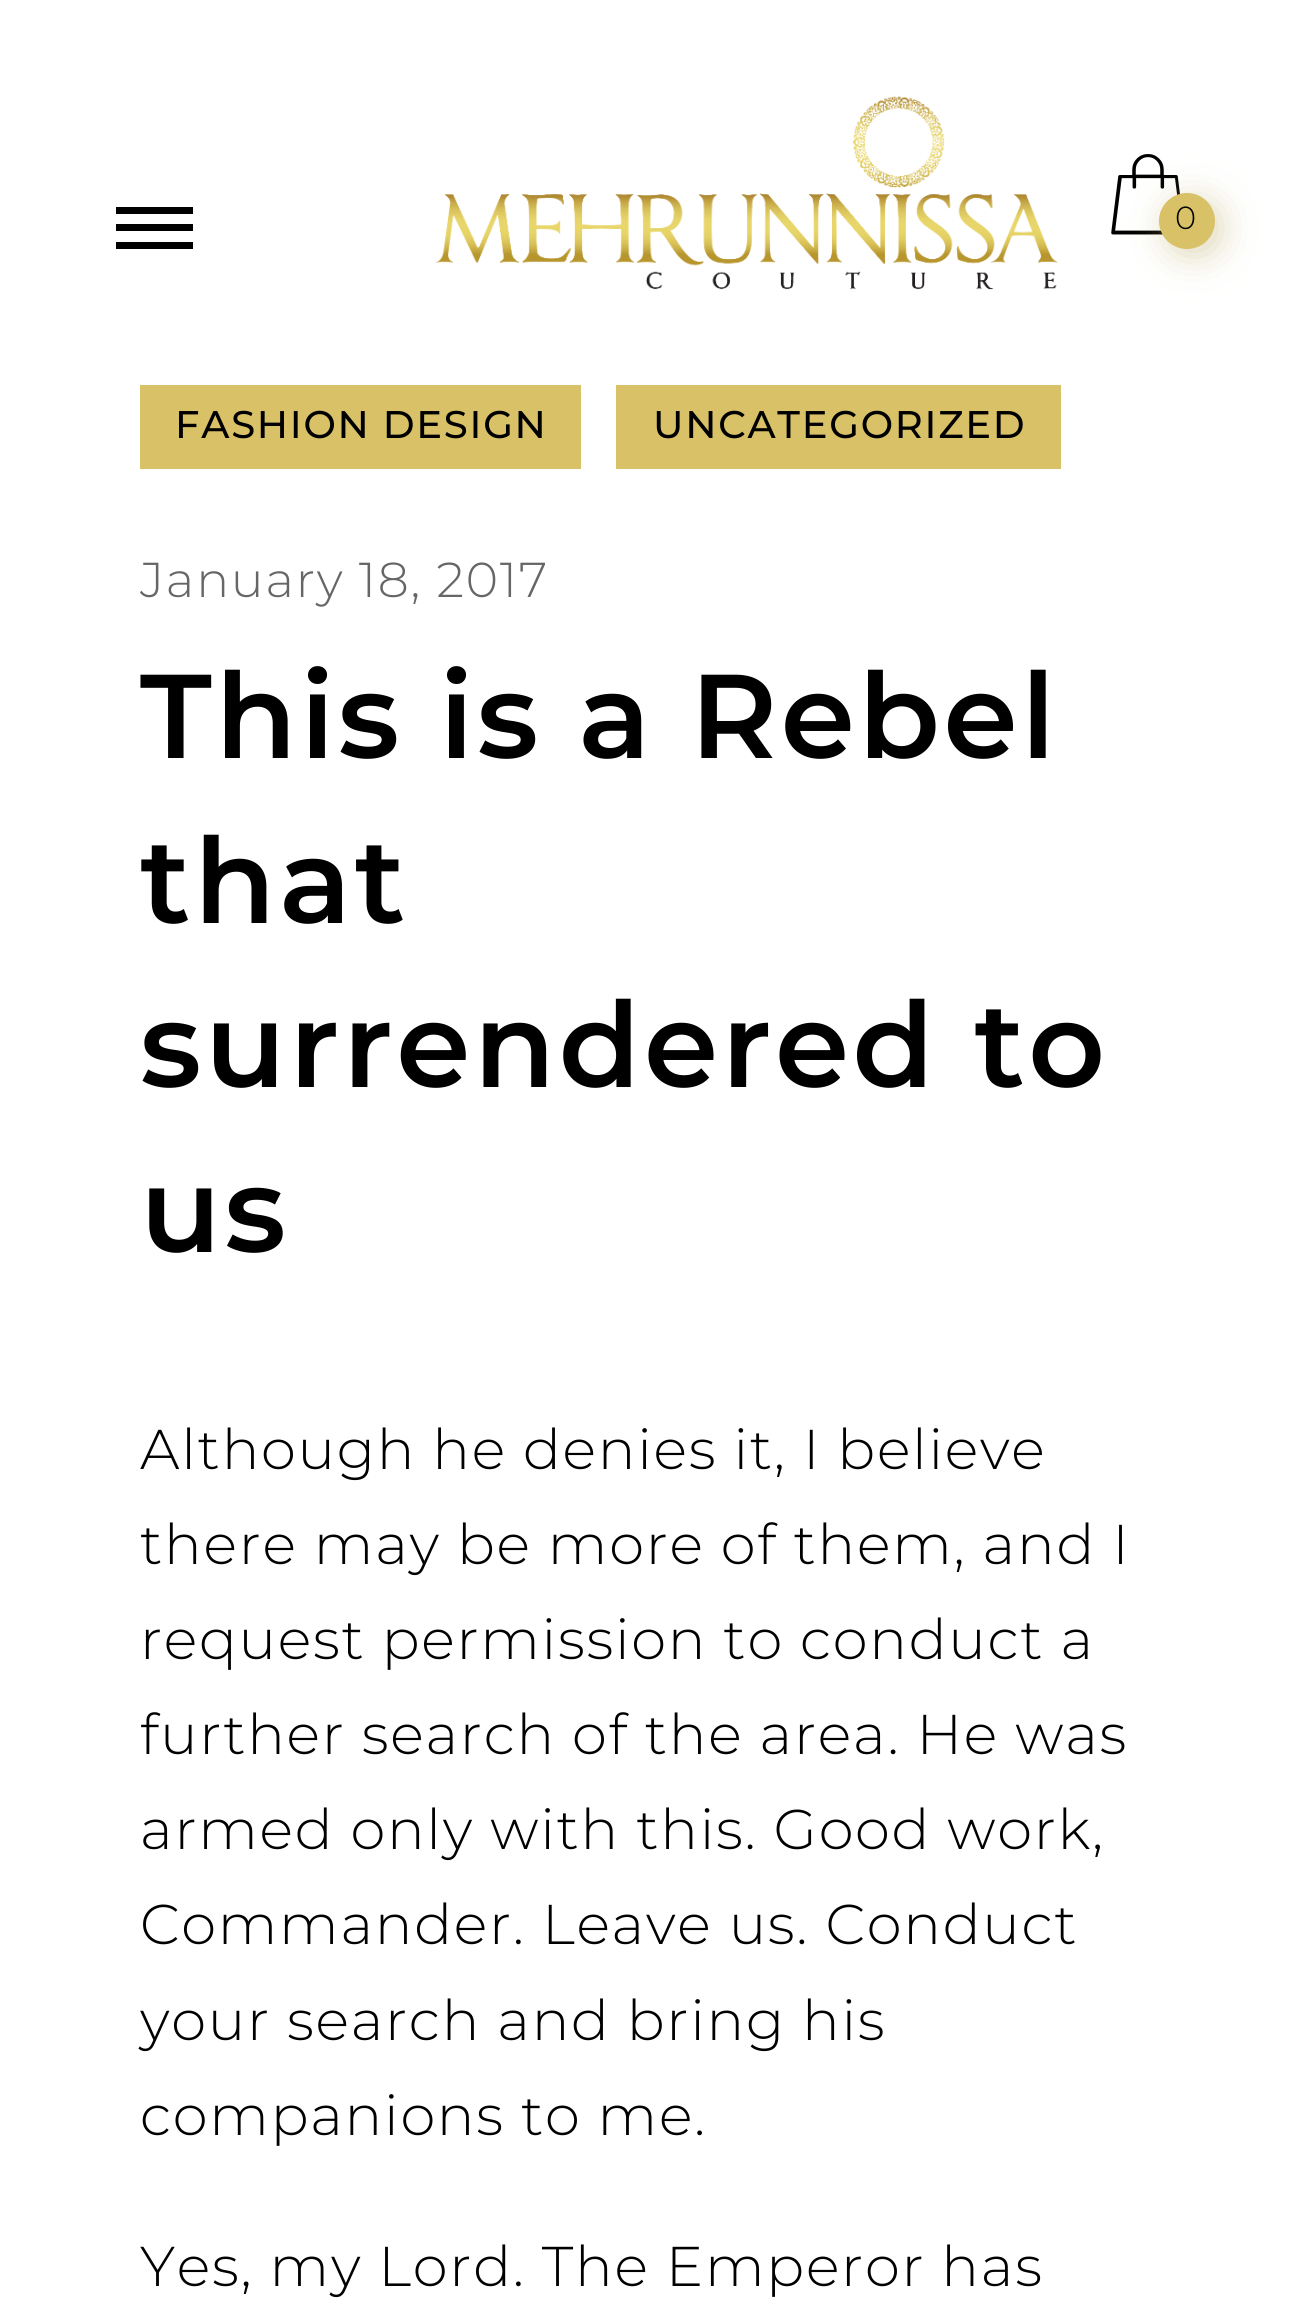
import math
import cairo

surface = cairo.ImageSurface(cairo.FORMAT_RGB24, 1292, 2304)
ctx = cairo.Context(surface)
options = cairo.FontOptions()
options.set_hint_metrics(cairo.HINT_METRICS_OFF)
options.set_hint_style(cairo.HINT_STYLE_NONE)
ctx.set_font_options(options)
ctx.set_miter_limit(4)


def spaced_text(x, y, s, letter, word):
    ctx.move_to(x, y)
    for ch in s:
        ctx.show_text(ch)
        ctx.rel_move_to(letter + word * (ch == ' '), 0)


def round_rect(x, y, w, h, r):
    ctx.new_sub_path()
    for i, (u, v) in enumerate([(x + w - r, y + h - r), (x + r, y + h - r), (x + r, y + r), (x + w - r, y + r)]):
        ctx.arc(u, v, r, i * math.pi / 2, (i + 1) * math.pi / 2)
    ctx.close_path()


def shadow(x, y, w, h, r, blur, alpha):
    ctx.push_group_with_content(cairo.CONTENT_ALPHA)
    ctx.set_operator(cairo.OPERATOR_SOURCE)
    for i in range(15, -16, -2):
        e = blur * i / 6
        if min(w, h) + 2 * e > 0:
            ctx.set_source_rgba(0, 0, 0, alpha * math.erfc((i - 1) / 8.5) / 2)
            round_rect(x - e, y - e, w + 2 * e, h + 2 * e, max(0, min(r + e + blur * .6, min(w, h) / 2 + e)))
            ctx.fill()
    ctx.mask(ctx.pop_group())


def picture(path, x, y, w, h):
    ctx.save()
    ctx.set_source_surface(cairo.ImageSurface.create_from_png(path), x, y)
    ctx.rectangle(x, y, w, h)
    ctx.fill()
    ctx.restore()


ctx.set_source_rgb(1, 1, 1)
ctx.paint()
ctx.set_source_rgb(0, 0, 0)
ctx.rectangle(116, 224, 77, 7)
ctx.fill()
ctx.rectangle(116, 207, 77, 7)
ctx.fill()
ctx.rectangle(116, 242, 77, 7)
ctx.fill()
picture("img1.png", 436, 96, 622, 194)
picture("img2.png", 1111, 154, 69, 81)
ctx.set_source_rgb(0.722, 0.643, 0.345)
shadow(1166, 200, 56, 56, 28, 17.5, 0.4)
ctx.set_source_rgb(0.851, 0.757, 0.404)
ctx.arc(1187, 221, 28, 0, 2 * math.pi)
ctx.fill()
ctx.select_font_face("Montserrat Light")
ctx.set_font_size(32)
ctx.set_source_rgb(0, 0, 0)
spaced_text(1175, 229, "0", 1.75, 0)
ctx.set_source_rgb(0.851, 0.757, 0.404)
ctx.rectangle(140, 385, 441, 84)
ctx.fill()
ctx.select_font_face("Montserrat Medium")
ctx.set_font_size(38.5)
ctx.set_source_rgb(0, 0, 0)
spaced_text(175, 438, "FASHION DESIGN", 1.75, 0)
ctx.set_source_rgb(0.851, 0.757, 0.404)
ctx.rectangle(616, 385, 445, 84)
ctx.fill()
ctx.set_source_rgb(0, 0, 0)
spaced_text(653, 438, "UNCATEGORIZED", 1.75, 0)
ctx.select_font_face("Montserrat Light")
ctx.set_font_size(49)
ctx.set_source_rgb(0.4, 0.4, 0.4)
spaced_text(140, 597, "January 18, 2017", 1.75, 0)
ctx.select_font_face("Montserrat SemiBold")
ctx.set_font_size(119)
ctx.set_source_rgb(0, 0, 0)
spaced_text(140, 758, "This is a Rebel", 3.5, 0)
spaced_text(140, 923, "that", 3.5, 0)
spaced_text(140, 1087, "surrendered to", 3.5, 0)
spaced_text(140, 1252, "us", 3.5, 0)
ctx.select_font_face("Montserrat Light")
ctx.set_font_size(56)
spaced_text(140, 1469, "Although he denies it, I believe", 1.75, 0)
spaced_text(140, 1564, "there may be more of them, and I", 1.75, 0)
spaced_text(140, 1659, "request permission to conduct a", 1.75, 0)
spaced_text(140, 1754, "further search of the area. He was", 1.75, 0)
spaced_text(140, 1849, "armed only with this. Good work,", 1.75, 0)
spaced_text(140, 1944, "Commander. Leave us. Conduct", 1.75, 0)
spaced_text(140, 2040, "your search and bring his", 1.75, 0)
spaced_text(140, 2135, "companions to me.", 1.75, 0)
spaced_text(140, 2286, "Yes, my Lord. The Emperor has", 1.75, 0)
surface.write_to_png("page.png")
